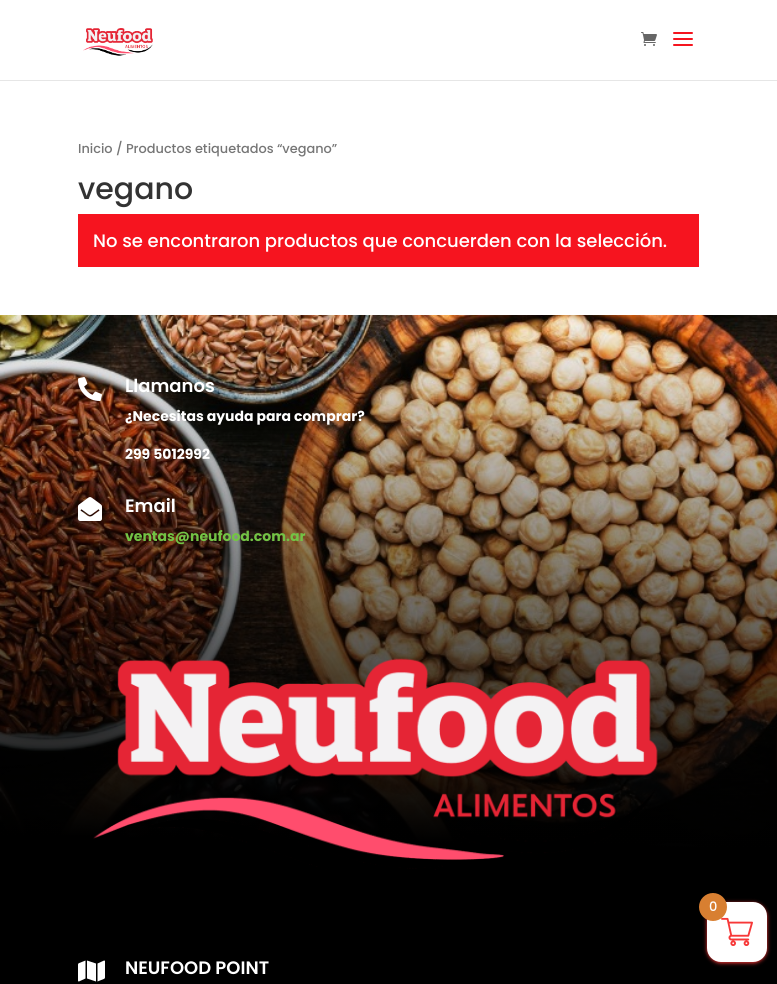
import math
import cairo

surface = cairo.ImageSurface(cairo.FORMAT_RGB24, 777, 984)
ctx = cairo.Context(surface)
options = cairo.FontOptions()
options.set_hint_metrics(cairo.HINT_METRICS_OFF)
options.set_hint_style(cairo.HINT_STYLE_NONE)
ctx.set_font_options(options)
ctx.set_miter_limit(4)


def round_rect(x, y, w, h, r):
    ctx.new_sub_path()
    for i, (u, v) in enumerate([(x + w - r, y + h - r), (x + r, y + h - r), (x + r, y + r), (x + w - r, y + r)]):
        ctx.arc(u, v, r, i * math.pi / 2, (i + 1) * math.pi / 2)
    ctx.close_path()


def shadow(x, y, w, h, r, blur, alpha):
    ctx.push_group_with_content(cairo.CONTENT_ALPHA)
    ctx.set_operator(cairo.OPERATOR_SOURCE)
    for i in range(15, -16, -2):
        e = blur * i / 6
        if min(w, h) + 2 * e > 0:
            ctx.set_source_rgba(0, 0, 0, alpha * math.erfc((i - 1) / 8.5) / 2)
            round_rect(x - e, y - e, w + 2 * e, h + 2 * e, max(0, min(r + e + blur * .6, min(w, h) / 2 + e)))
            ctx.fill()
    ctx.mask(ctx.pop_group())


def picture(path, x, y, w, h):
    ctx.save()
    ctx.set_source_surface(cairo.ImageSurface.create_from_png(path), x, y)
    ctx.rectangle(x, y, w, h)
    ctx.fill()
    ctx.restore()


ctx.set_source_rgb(1, 1, 1)
ctx.paint()
ctx.set_source_rgb(0.902, 0.902, 0.902)
ctx.rectangle(0, 80, 777, 1)
ctx.fill()
picture("img1.png", 83, 28, 70, 28)
picture("img2.png", 641, 32, 16, 14)
picture("img3.png", 673, 32, 20, 14)
ctx.select_font_face("Poppins Medium")
ctx.set_font_size(12.9)
ctx.set_source_rgb(0.463, 0.463, 0.463)
ctx.move_to(78, 153)
ctx.show_text("Inicio / Productos etiquetados “vegano”")
ctx.set_font_size(30)
ctx.set_source_rgb(0.2, 0.2, 0.2)
ctx.move_to(78, 199)
ctx.show_text("vegano")
ctx.set_source_rgb(0.961, 0.082, 0.122)
ctx.rectangle(78, 214, 621, 53)
ctx.fill()
ctx.set_font_size(18)
ctx.set_source_rgb(1, 1, 1)
ctx.move_to(93, 247)
ctx.show_text("No se encontraron productos que concuerden con la selección.")
picture("img4.png", 0, 315, 777, 669)
picture("img5.png", 78, 377, 24, 24)
ctx.select_font_face("Poppins SemiBold")
ctx.move_to(125, 392)
ctx.show_text("Llamanos")
ctx.select_font_face("Poppins", cairo.FONT_SLANT_NORMAL, cairo.FONT_WEIGHT_BOLD)
ctx.set_font_size(14)
ctx.move_to(125, 421)
ctx.show_text("¿Necesitas ayuda para comprar?")
ctx.move_to(125, 459)
ctx.show_text("299 5012992")
picture("img6.png", 78, 497, 24, 24)
ctx.select_font_face("Poppins SemiBold")
ctx.set_font_size(18)
ctx.move_to(125, 512)
ctx.show_text("Email")
ctx.select_font_face("Poppins", cairo.FONT_SLANT_NORMAL, cairo.FONT_WEIGHT_BOLD)
ctx.set_font_size(14)
ctx.set_source_rgb(0.451, 0.765, 0.271)
ctx.move_to(125, 541)
ctx.show_text("ventas@neufood.com.ar")
picture("img7.png", 93, 658, 565, 212)
picture("img8.png", 78, 960, 27, 22)
ctx.select_font_face("Poppins SemiBold")
ctx.set_font_size(18)
ctx.set_source_rgb(1, 1, 1)
ctx.move_to(125, 974)
ctx.show_text("NEUFOOD POINT")
ctx.set_source_rgb(0.969, 0.22, 0.22)
shadow(707, 903, 60, 60, 14, 2, 1)
ctx.set_source_rgb(1, 1, 1)
round_rect(707, 902, 60, 60, 14)
ctx.fill()
picture("img9.png", 721, 917, 32, 29)
ctx.set_source_rgb(0.847, 0.498, 0.192)
ctx.arc(713, 907, 14, 0, 2 * math.pi)
ctx.fill()
ctx.select_font_face("Poppins Medium")
ctx.set_font_size(13)
ctx.set_source_rgb(1, 1, 1)
ctx.move_to(709, 911)
ctx.show_text("0")
surface.write_to_png("page.png")
